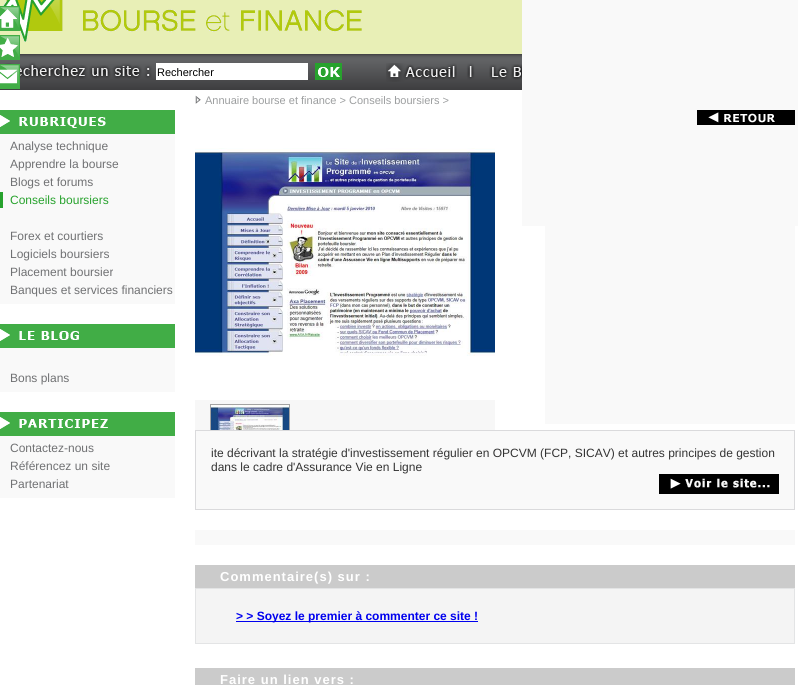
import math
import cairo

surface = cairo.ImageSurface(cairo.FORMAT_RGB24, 798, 685)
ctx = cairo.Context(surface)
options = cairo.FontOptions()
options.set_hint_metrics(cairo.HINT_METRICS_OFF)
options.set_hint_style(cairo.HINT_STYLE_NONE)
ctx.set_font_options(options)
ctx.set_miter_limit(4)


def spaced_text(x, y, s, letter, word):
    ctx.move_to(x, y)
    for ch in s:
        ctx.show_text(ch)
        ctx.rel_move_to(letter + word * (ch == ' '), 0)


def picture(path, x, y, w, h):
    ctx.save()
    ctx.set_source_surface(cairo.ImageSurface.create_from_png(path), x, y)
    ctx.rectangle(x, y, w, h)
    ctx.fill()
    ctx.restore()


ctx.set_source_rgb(1, 1, 1)
ctx.paint()
ctx.set_source_rgb(0.91, 0.937, 0.714)
ctx.rectangle(0, 0, 522, 54)
ctx.fill()
picture("img5.png", 3, 0, 359, 42)
picture("img1.png", 0, 6, 20, 25)
picture("img4.png", 0, 54, 522, 36)
picture("img2.png", 0, 35, 20, 25)
picture("img3.png", 0, 64, 20, 25)
picture("img6.png", 386, 63, 71, 19)
picture("img7.png", 489, 64, 33, 18)
ctx.set_source_rgb(0.973, 0.973, 0.973)
ctx.rectangle(522, 0, 276, 226)
ctx.fill()
picture("img8.png", 315, 63, 27, 17)
ctx.set_source_rgb(1, 1, 1)
ctx.rectangle(156, 63, 152, 17)
ctx.fill()
ctx.select_font_face("Liberation Sans")
ctx.set_font_size(11)
ctx.set_source_rgb(0, 0, 0)
ctx.move_to(157, 76)
ctx.show_text("Rechercher")
picture("img9.png", 0, 110, 175, 24)
ctx.set_source_rgb(0.973, 0.973, 0.973)
ctx.rectangle(0, 134, 175, 170)
ctx.fill()
ctx.set_font_size(12)
ctx.set_source_rgb(0.439, 0.443, 0.451)
ctx.move_to(10, 150)
ctx.show_text("Analyse technique")
ctx.move_to(10, 168)
ctx.show_text("Apprendre la bourse")
ctx.move_to(10, 186)
ctx.show_text("Blogs et forums")
ctx.set_source_rgb(0.153, 0.635, 0.176)
ctx.rectangle(0, 192, 3, 16)
ctx.fill()
ctx.move_to(10, 204)
ctx.show_text("Conseils boursiers")
ctx.set_source_rgb(0.439, 0.443, 0.451)
ctx.move_to(10, 240)
ctx.show_text("Forex et courtiers")
ctx.move_to(10, 258)
ctx.show_text("Logiciels boursiers")
ctx.move_to(10, 276)
ctx.show_text("Placement boursier")
ctx.move_to(10, 294)
ctx.show_text("Banques et services financiers")
picture("img10.png", 0, 324, 175, 24)
ctx.set_source_rgb(0.973, 0.973, 0.973)
ctx.rectangle(0, 348, 175, 44)
ctx.fill()
ctx.set_source_rgb(0.439, 0.443, 0.451)
ctx.move_to(10, 382)
ctx.show_text("Bons plans")
picture("img11.png", 0, 412, 175, 24)
ctx.set_source_rgb(0.973, 0.973, 0.973)
ctx.rectangle(0, 436, 175, 62)
ctx.fill()
ctx.set_source_rgb(0.439, 0.443, 0.451)
ctx.move_to(10, 452)
ctx.show_text("Contactez-nous")
ctx.move_to(10, 470)
ctx.show_text("Référencez un site")
ctx.move_to(10, 488)
ctx.show_text("Partenariat")
picture("img12.png", 195, 95, 6, 9)
ctx.set_font_size(11)
ctx.set_source_rgb(0.612, 0.62, 0.624)
ctx.move_to(205, 104)
ctx.show_text("Annuaire bourse et finance > Conseils boursiers >")
picture("img13.png", 697, 110, 98, 15)
picture("img14.png", 195, 148, 300, 208)
ctx.set_source_rgb(0.973, 0.973, 0.973)
ctx.rectangle(545, 226, 250, 198)
ctx.fill()
ctx.set_source_rgb(0.965, 0.965, 0.965)
ctx.rectangle(195, 400, 300, 30)
ctx.fill()
ctx.rectangle(210.5, 404.5, 79, 51)
ctx.set_source_rgb(0.639, 0.639, 0.639)
ctx.set_line_width(1)
ctx.stroke()
picture("img15.png", 211, 405, 78, 25)
ctx.set_source_rgb(0.976, 0.976, 0.976)
ctx.rectangle(195.5, 430.5, 599, 79)
ctx.fill_preserve()
ctx.set_source_rgb(0.855, 0.855, 0.863)
ctx.stroke()
ctx.set_font_size(12)
ctx.set_source_rgb(0.2, 0.2, 0.2)
ctx.move_to(211, 457)
ctx.show_text("ite décrivant la stratégie d'investissement régulier en OPCVM (FCP, SICAV) et autres principes de gestion")
ctx.move_to(211, 471)
ctx.show_text("dans le cadre d'Assurance Vie en Ligne")
picture("img16.png", 659, 474, 120, 20)
ctx.set_source_rgb(0.973, 0.973, 0.973)
ctx.rectangle(195, 530, 600, 15)
ctx.fill()
ctx.set_source_rgb(0.796, 0.796, 0.796)
ctx.rectangle(195, 565, 600, 23)
ctx.fill()
ctx.select_font_face("Liberation Sans", cairo.FONT_SLANT_NORMAL, cairo.FONT_WEIGHT_BOLD)
ctx.set_font_size(13)
ctx.set_source_rgb(1, 1, 1)
spaced_text(220, 581, "Commentaire(s) sur :", 1, 0)
ctx.set_source_rgb(0.957, 0.957, 0.957)
ctx.rectangle(195.5, 588.5, 599, 55)
ctx.fill_preserve()
ctx.set_source_rgb(0.89, 0.894, 0.898)
ctx.stroke()
ctx.set_source_rgb(0, 0, 0.933)
ctx.rectangle(236, 621, 242, 1)
ctx.fill()
ctx.set_font_size(12)
ctx.move_to(236, 620)
ctx.show_text("> > Soyez le premier à commenter ce site !")
ctx.set_source_rgb(0.796, 0.796, 0.796)
ctx.rectangle(195, 668, 600, 17)
ctx.fill()
ctx.set_font_size(13)
ctx.set_source_rgb(1, 1, 1)
spaced_text(220, 684, "Faire un lien vers :", 1, 0)
surface.write_to_png("page.png")
